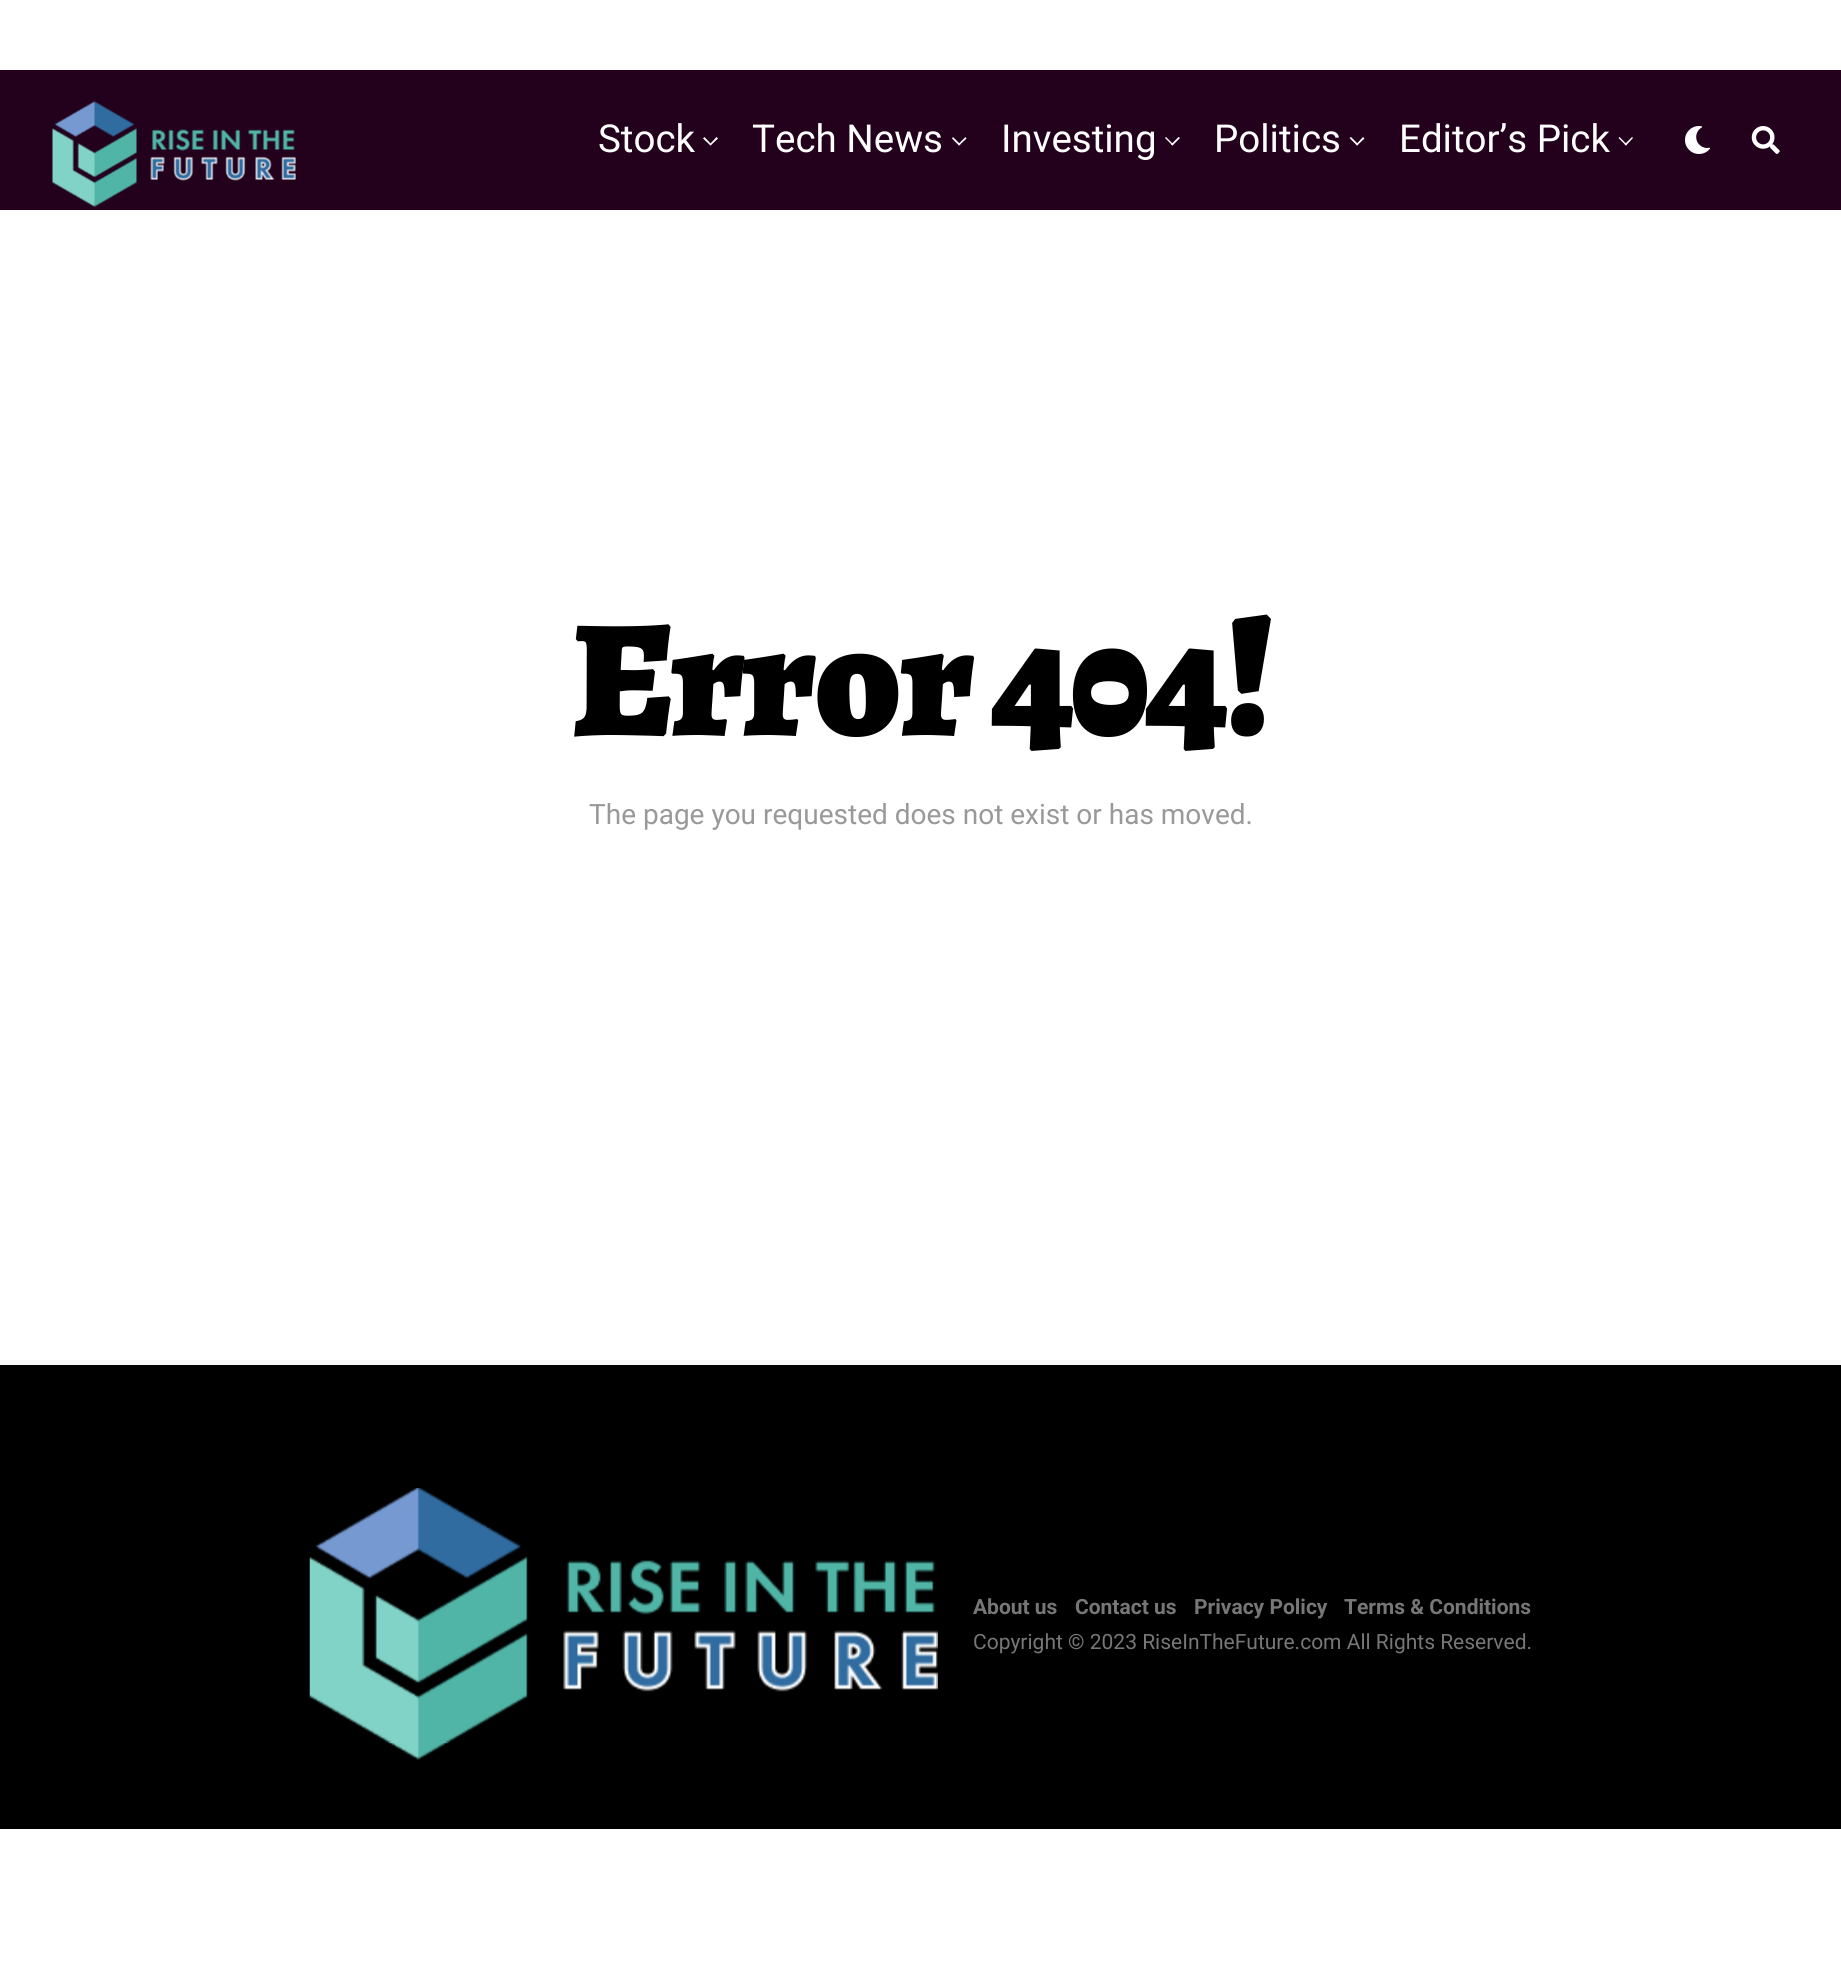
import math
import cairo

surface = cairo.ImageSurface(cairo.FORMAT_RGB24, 1841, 1986)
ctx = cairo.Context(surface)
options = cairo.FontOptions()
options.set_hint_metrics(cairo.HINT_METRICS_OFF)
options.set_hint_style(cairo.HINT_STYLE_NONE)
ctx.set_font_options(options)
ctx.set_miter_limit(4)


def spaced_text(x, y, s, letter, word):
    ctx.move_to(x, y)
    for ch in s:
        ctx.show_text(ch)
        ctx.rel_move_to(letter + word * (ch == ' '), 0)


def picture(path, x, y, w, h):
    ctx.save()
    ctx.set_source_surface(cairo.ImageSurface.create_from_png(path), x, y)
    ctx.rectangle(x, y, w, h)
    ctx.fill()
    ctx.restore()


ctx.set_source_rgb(1, 1, 1)
ctx.paint()
ctx.set_source_rgb(0.137, 0, 0.106)
ctx.rectangle(0, 70, 1841, 140)
ctx.fill()
picture("img1.png", 52, 101, 244, 106)
ctx.select_font_face("Roboto")
ctx.set_font_size(38.5)
ctx.set_source_rgb(1, 1, 1)
ctx.move_to(598, 152)
ctx.show_text("Stock")
ctx.new_path()
ctx.move_to(716.5, 137)
ctx.line_to(718, 138.5)
ctx.line_to(710.5, 145.5)
ctx.line_to(709.5, 144.5)
ctx.close_path()
ctx.fill()
ctx.new_path()
ctx.move_to(704.5, 137)
ctx.line_to(711.5, 144.5)
ctx.line_to(710.5, 145.5)
ctx.line_to(703, 138.5)
ctx.close_path()
ctx.fill()
ctx.move_to(752, 152)
ctx.show_text("Tech News")
ctx.new_path()
ctx.move_to(965.5, 137)
ctx.line_to(966.5, 138.5)
ctx.line_to(959, 145.5)
ctx.line_to(958, 144.5)
ctx.close_path()
ctx.fill()
ctx.new_path()
ctx.move_to(953, 137)
ctx.line_to(960.5, 144.5)
ctx.line_to(959, 145.5)
ctx.line_to(952, 138.5)
ctx.close_path()
ctx.fill()
ctx.move_to(1001, 152)
ctx.show_text("Investing")
ctx.new_path()
ctx.move_to(1178.5, 137)
ctx.line_to(1180, 138)
ctx.line_to(1172.5, 145.5)
ctx.line_to(1171, 144.5)
ctx.close_path()
ctx.fill()
ctx.new_path()
ctx.move_to(1166, 137)
ctx.line_to(1173.5, 144.5)
ctx.line_to(1172.5, 145.5)
ctx.line_to(1165, 138)
ctx.close_path()
ctx.fill()
ctx.move_to(1214, 152)
ctx.show_text("Politics")
ctx.new_path()
ctx.move_to(1363, 137)
ctx.line_to(1364.5, 138.5)
ctx.line_to(1357, 145.5)
ctx.line_to(1356, 144.5)
ctx.close_path()
ctx.fill()
ctx.new_path()
ctx.move_to(1351, 137)
ctx.line_to(1358.5, 144.5)
ctx.line_to(1357, 145.5)
ctx.line_to(1349.5, 138)
ctx.close_path()
ctx.fill()
ctx.move_to(1399, 152)
ctx.show_text("Editor’s Pick")
ctx.new_path()
ctx.move_to(1632, 137)
ctx.line_to(1633, 138)
ctx.line_to(1626, 145.5)
ctx.line_to(1624.5, 144.5)
ctx.close_path()
ctx.fill()
ctx.new_path()
ctx.move_to(1619.5, 137)
ctx.line_to(1627, 144.5)
ctx.line_to(1626, 145.5)
ctx.line_to(1618.5, 138)
ctx.close_path()
ctx.fill()
picture("img2.png", 1685, 126, 25, 28)
picture("img3.png", 1751, 126, 29, 28)
ctx.select_font_face("Alegreya Black")
ctx.set_font_size(168)
ctx.set_source_rgb(0, 0, 0)
spaced_text(572, 735, "Error 404!", -3.4, 0)
ctx.select_font_face("Roboto")
ctx.set_font_size(28)
ctx.set_source_rgb(0.6, 0.6, 0.6)
ctx.move_to(589, 824)
ctx.show_text("The page you requested does not exist or has moved.")
ctx.set_source_rgb(0, 0, 0)
ctx.rectangle(0, 1365, 1841, 464)
ctx.fill()
ctx.set_source_rgb(0.969, 0.969, 0.969)
ctx.rectangle(0, 1360, 1841, 5)
ctx.fill()
picture("img4.png", 309, 1488, 629, 272)
ctx.select_font_face("Roboto", cairo.FONT_SLANT_NORMAL, cairo.FONT_WEIGHT_BOLD)
ctx.set_font_size(21)
ctx.set_source_rgb(0.467, 0.467, 0.467)
ctx.move_to(973, 1614)
ctx.show_text("About us")
ctx.move_to(1075, 1614)
ctx.show_text("Contact us")
ctx.move_to(1194, 1614)
ctx.show_text("Privacy Policy")
ctx.move_to(1344, 1614)
ctx.show_text("Terms & Conditions")
ctx.select_font_face("Roboto")
ctx.move_to(973, 1649)
ctx.show_text("Copyright © 2023 RiseInTheFuture.com All Rights Reserved.")
surface.write_to_png("page.png")
